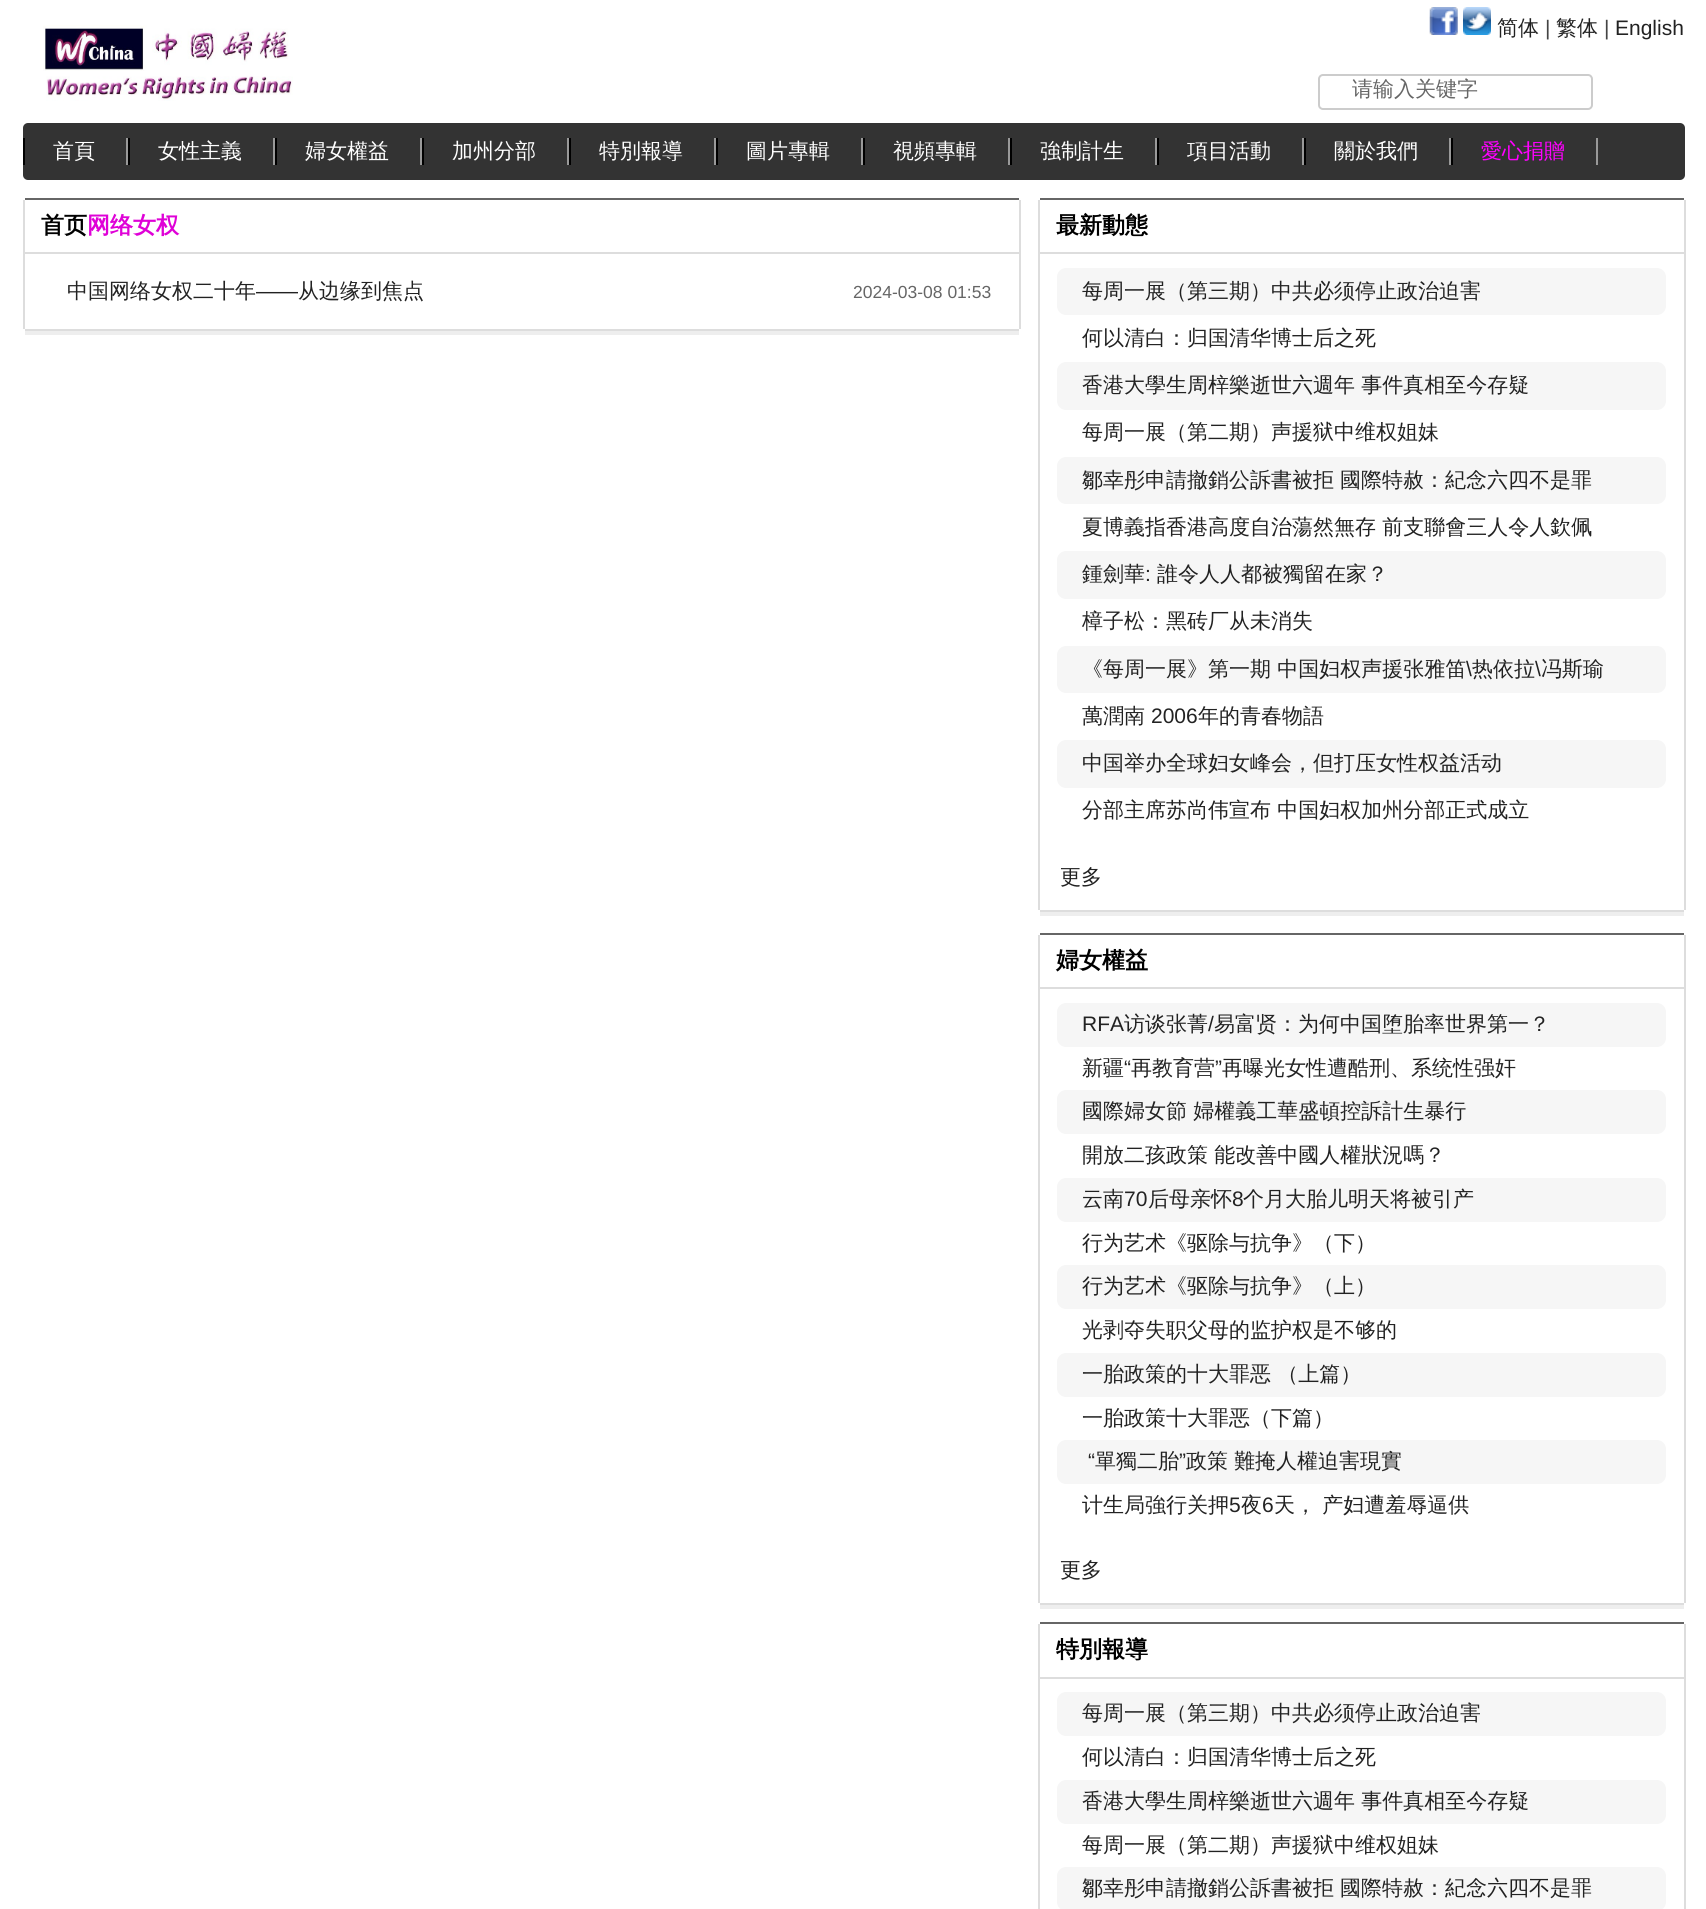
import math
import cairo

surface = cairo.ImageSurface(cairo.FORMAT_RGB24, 1706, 1909)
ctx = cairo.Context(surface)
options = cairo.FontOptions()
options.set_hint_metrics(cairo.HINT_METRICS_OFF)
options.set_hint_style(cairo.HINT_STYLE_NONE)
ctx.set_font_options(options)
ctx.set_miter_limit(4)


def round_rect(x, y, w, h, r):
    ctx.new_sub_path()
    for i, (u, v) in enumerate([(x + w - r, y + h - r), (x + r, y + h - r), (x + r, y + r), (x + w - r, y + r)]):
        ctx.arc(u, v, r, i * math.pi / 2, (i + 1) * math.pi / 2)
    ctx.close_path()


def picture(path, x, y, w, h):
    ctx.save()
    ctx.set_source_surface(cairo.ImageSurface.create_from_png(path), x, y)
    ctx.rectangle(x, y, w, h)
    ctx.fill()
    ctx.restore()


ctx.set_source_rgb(1, 1, 1)
ctx.paint()
picture("img1.png", 43, 25, 250, 76)
round_rect(1319, 75, 273, 34, 4)
ctx.set_source_rgb(0.8, 0.8, 0.8)
ctx.stroke()
ctx.select_font_face("WenQuanYi Zen Hei Medium")
ctx.set_font_size(21)
ctx.set_source_rgb(0.4, 0.4, 0.4)
ctx.move_to(1352, 96)
ctx.show_text("请输入关键字")
picture("img2.png", 1429, 7, 29, 28)
picture("img3.png", 1463, 7, 28, 28)
ctx.set_source_rgb(0.133, 0.133, 0.133)
ctx.move_to(1497, 35)
ctx.show_text("简体")
ctx.select_font_face("Liberation Sans")
ctx.set_source_rgb(0.267, 0.267, 0.267)
ctx.move_to(1545, 35)
ctx.show_text("|")
ctx.select_font_face("WenQuanYi Zen Hei Medium")
ctx.set_source_rgb(0.133, 0.133, 0.133)
ctx.move_to(1556, 35)
ctx.show_text("繁体")
ctx.select_font_face("Liberation Sans")
ctx.set_source_rgb(0.267, 0.267, 0.267)
ctx.move_to(1604, 35)
ctx.show_text("|")
ctx.set_source_rgb(0.133, 0.133, 0.133)
ctx.move_to(1615, 35)
ctx.show_text("English")
ctx.set_source_rgb(0.2, 0.2, 0.2)
round_rect(23, 123, 1662, 57, 5)
ctx.fill()
ctx.set_source_rgb(0.6, 0.6, 0.6)
ctx.rectangle(126, 138, 2, 27)
ctx.fill()
ctx.set_source_rgb(0, 0, 0)
ctx.rectangle(23, 138, 2, 27)
ctx.fill()
ctx.select_font_face("WenQuanYi Zen Hei Medium")
ctx.set_source_rgb(1, 1, 1)
ctx.move_to(53, 158)
ctx.show_text("首頁")
ctx.set_source_rgb(0.6, 0.6, 0.6)
ctx.rectangle(273, 138, 2, 27)
ctx.fill()
ctx.set_source_rgb(0, 0, 0)
ctx.rectangle(128, 138, 2, 27)
ctx.fill()
ctx.set_source_rgb(1, 1, 1)
ctx.move_to(158, 158)
ctx.show_text("女性主義")
ctx.set_source_rgb(0.6, 0.6, 0.6)
ctx.rectangle(420, 138, 2, 27)
ctx.fill()
ctx.set_source_rgb(0, 0, 0)
ctx.rectangle(275, 138, 2, 27)
ctx.fill()
ctx.set_source_rgb(1, 1, 1)
ctx.move_to(305, 158)
ctx.show_text("婦女權益")
ctx.set_source_rgb(0.6, 0.6, 0.6)
ctx.rectangle(567, 138, 2, 27)
ctx.fill()
ctx.set_source_rgb(0, 0, 0)
ctx.rectangle(422, 138, 2, 27)
ctx.fill()
ctx.set_source_rgb(1, 1, 1)
ctx.move_to(452, 158)
ctx.show_text("加州分部")
ctx.set_source_rgb(0.6, 0.6, 0.6)
ctx.rectangle(714, 138, 2, 27)
ctx.fill()
ctx.set_source_rgb(0, 0, 0)
ctx.rectangle(569, 138, 2, 27)
ctx.fill()
ctx.set_source_rgb(1, 1, 1)
ctx.move_to(599, 158)
ctx.show_text("特別報導")
ctx.set_source_rgb(0.6, 0.6, 0.6)
ctx.rectangle(861, 138, 2, 27)
ctx.fill()
ctx.set_source_rgb(0, 0, 0)
ctx.rectangle(716, 138, 2, 27)
ctx.fill()
ctx.set_source_rgb(1, 1, 1)
ctx.move_to(746, 158)
ctx.show_text("圖片專輯")
ctx.set_source_rgb(0.6, 0.6, 0.6)
ctx.rectangle(1008, 138, 2, 27)
ctx.fill()
ctx.set_source_rgb(0, 0, 0)
ctx.rectangle(863, 138, 2, 27)
ctx.fill()
ctx.set_source_rgb(1, 1, 1)
ctx.move_to(893, 158)
ctx.show_text("視頻專輯")
ctx.set_source_rgb(0.6, 0.6, 0.6)
ctx.rectangle(1155, 138, 2, 27)
ctx.fill()
ctx.set_source_rgb(0, 0, 0)
ctx.rectangle(1010, 138, 2, 27)
ctx.fill()
ctx.set_source_rgb(1, 1, 1)
ctx.move_to(1040, 158)
ctx.show_text("強制計生")
ctx.set_source_rgb(0.6, 0.6, 0.6)
ctx.rectangle(1302, 138, 2, 27)
ctx.fill()
ctx.set_source_rgb(0, 0, 0)
ctx.rectangle(1157, 138, 2, 27)
ctx.fill()
ctx.set_source_rgb(1, 1, 1)
ctx.move_to(1187, 158)
ctx.show_text("項目活動")
ctx.set_source_rgb(0.6, 0.6, 0.6)
ctx.rectangle(1449, 138, 2, 27)
ctx.fill()
ctx.set_source_rgb(0, 0, 0)
ctx.rectangle(1304, 138, 2, 27)
ctx.fill()
ctx.set_source_rgb(1, 1, 1)
ctx.move_to(1334, 158)
ctx.show_text("關於我們")
ctx.set_source_rgb(0.6, 0.6, 0.6)
ctx.rectangle(1596, 138, 2, 27)
ctx.fill()
ctx.set_source_rgb(0, 0, 0)
ctx.rectangle(1451, 138, 2, 27)
ctx.fill()
ctx.set_source_rgb(1, 0, 1)
ctx.move_to(1481, 158)
ctx.show_text("愛心捐贈")
ctx.set_source_rgb(0.4, 0.4, 0.4)
ctx.rectangle(25, 198, 994, 2)
ctx.fill()
ctx.set_source_rgb(0.867, 0.867, 0.867)
ctx.rectangle(1019, 200, 2, 129)
ctx.fill()
ctx.rectangle(23, 200, 2, 129)
ctx.fill()
ctx.rectangle(25, 252, 994, 2)
ctx.fill()
ctx.select_font_face("WenQuanYi Zen Hei", cairo.FONT_SLANT_NORMAL, cairo.FONT_WEIGHT_BOLD)
ctx.set_font_size(23)
ctx.set_source_rgb(0, 0, 0)
ctx.move_to(41, 233)
ctx.show_text("首页")
ctx.set_source_rgb(0.875, 0.004, 0.843)
ctx.move_to(87, 233)
ctx.show_text("网络女权")
ctx.select_font_face("WenQuanYi Zen Hei Medium")
ctx.set_font_size(21)
ctx.set_source_rgb(0.133, 0.133, 0.133)
ctx.move_to(67, 298)
ctx.show_text("中国网络女权二十年")
ctx.select_font_face("Liberation Sans")
ctx.move_to(256, 298)
ctx.show_text("——")
ctx.select_font_face("WenQuanYi Zen Hei Medium")
ctx.move_to(298, 298)
ctx.show_text("从边缘到焦点")
ctx.select_font_face("Liberation Sans")
ctx.set_font_size(17.5)
ctx.set_source_rgb(0.4, 0.4, 0.4)
ctx.move_to(853, 298)
ctx.show_text("2024-03-08 01:53")
ctx.set_source_rgb(0.867, 0.867, 0.867)
ctx.rectangle(25, 329, 994, 2)
ctx.fill()
ctx.set_source_rgb(0.933, 0.933, 0.933)
ctx.rectangle(25, 331, 994, 4)
ctx.fill()
ctx.set_source_rgb(0.4, 0.4, 0.4)
ctx.rectangle(1040, 198, 644, 2)
ctx.fill()
ctx.set_source_rgb(0.867, 0.867, 0.867)
ctx.rectangle(1684, 200, 2, 710)
ctx.fill()
ctx.rectangle(1038, 200, 2, 710)
ctx.fill()
ctx.rectangle(1040, 252, 644, 2)
ctx.fill()
ctx.select_font_face("WenQuanYi Zen Hei", cairo.FONT_SLANT_NORMAL, cairo.FONT_WEIGHT_BOLD)
ctx.set_font_size(23)
ctx.set_source_rgb(0, 0, 0)
ctx.move_to(1056, 233)
ctx.show_text("最新動態")
ctx.set_source_rgb(0.961, 0.961, 0.961)
round_rect(1057, 268, 609, 47, 9)
ctx.fill()
ctx.select_font_face("WenQuanYi Zen Hei Medium")
ctx.set_font_size(21)
ctx.set_source_rgb(0.133, 0.133, 0.133)
ctx.move_to(1082, 298)
ctx.show_text("每周一展（第三期）中共必须停止政治迫害")
ctx.move_to(1082, 345)
ctx.show_text("何以清白：归国清华博士后之死")
ctx.set_source_rgb(0.961, 0.961, 0.961)
round_rect(1057, 362, 609, 48, 9)
ctx.fill()
ctx.set_source_rgb(0.133, 0.133, 0.133)
ctx.move_to(1082, 392)
ctx.show_text("香港大學生周梓樂逝世六週年 事件真相至今存疑")
ctx.move_to(1082, 439)
ctx.show_text("每周一展（第二期）声援狱中维权姐妹")
ctx.set_source_rgb(0.961, 0.961, 0.961)
round_rect(1057, 457, 609, 47, 9)
ctx.fill()
ctx.set_source_rgb(0.133, 0.133, 0.133)
ctx.move_to(1082, 487)
ctx.show_text("鄒幸彤申請撤銷公訴書被拒")
ctx.move_to(1340, 487)
ctx.show_text("國際特赦：紀念六四不是罪")
ctx.move_to(1082, 534)
ctx.show_text("夏博義指香港高度自治蕩然無存 前支聯會三人令人欽佩")
ctx.set_source_rgb(0.961, 0.961, 0.961)
round_rect(1057, 551, 609, 48, 9)
ctx.fill()
ctx.set_source_rgb(0.133, 0.133, 0.133)
ctx.move_to(1082, 581)
ctx.show_text("鍾劍華")
ctx.select_font_face("Liberation Sans")
ctx.move_to(1145, 581)
ctx.show_text(":")
ctx.select_font_face("WenQuanYi Zen Hei Medium")
ctx.move_to(1157, 581)
ctx.show_text("誰令人人都被獨留在家？")
ctx.move_to(1082, 628)
ctx.show_text("樟子松：黑砖厂从未消失")
ctx.set_source_rgb(0.961, 0.961, 0.961)
round_rect(1057, 646, 609, 47, 9)
ctx.fill()
ctx.set_source_rgb(0.133, 0.133, 0.133)
ctx.move_to(1082, 676)
ctx.show_text("《每周一展》第一期 中国妇权声援张雅笛")
ctx.select_font_face("Liberation Sans")
ctx.move_to(1466, 676)
ctx.show_text("\\")
ctx.select_font_face("WenQuanYi Zen Hei Medium")
ctx.move_to(1472, 676)
ctx.show_text("热依拉")
ctx.select_font_face("Liberation Sans")
ctx.move_to(1535, 676)
ctx.show_text("\\")
ctx.select_font_face("WenQuanYi Zen Hei Medium")
ctx.move_to(1541, 676)
ctx.show_text("冯斯瑜")
ctx.move_to(1082, 723)
ctx.show_text("萬潤南")
ctx.select_font_face("Liberation Sans")
ctx.move_to(1151, 723)
ctx.show_text("2006")
ctx.select_font_face("WenQuanYi Zen Hei Medium")
ctx.move_to(1198, 723)
ctx.show_text("年的青春物語")
ctx.set_source_rgb(0.961, 0.961, 0.961)
round_rect(1057, 740, 609, 48, 9)
ctx.fill()
ctx.set_source_rgb(0.133, 0.133, 0.133)
ctx.move_to(1082, 770)
ctx.show_text("中国举办全球妇女峰会，但打压女性权益活动")
ctx.move_to(1082, 817)
ctx.show_text("分部主席苏尚伟宣布 中国妇权加州分部正式成立")
ctx.move_to(1060, 884)
ctx.show_text("更多")
ctx.set_source_rgb(0.867, 0.867, 0.867)
ctx.rectangle(1040, 910, 644, 2)
ctx.fill()
ctx.set_source_rgb(0.933, 0.933, 0.933)
ctx.rectangle(1040, 912, 644, 4)
ctx.fill()
ctx.set_source_rgb(0.4, 0.4, 0.4)
ctx.rectangle(1040, 933, 644, 2)
ctx.fill()
ctx.set_source_rgb(0.867, 0.867, 0.867)
ctx.rectangle(1684, 935, 2, 668)
ctx.fill()
ctx.rectangle(1038, 935, 2, 668)
ctx.fill()
ctx.rectangle(1040, 987, 644, 2)
ctx.fill()
ctx.select_font_face("WenQuanYi Zen Hei", cairo.FONT_SLANT_NORMAL, cairo.FONT_WEIGHT_BOLD)
ctx.set_font_size(23)
ctx.set_source_rgb(0, 0, 0)
ctx.move_to(1056, 968)
ctx.show_text("婦女權益")
ctx.set_source_rgb(0.961, 0.961, 0.961)
round_rect(1057, 1003, 609, 44, 9)
ctx.fill()
ctx.select_font_face("Liberation Sans")
ctx.set_font_size(21)
ctx.set_source_rgb(0.133, 0.133, 0.133)
ctx.move_to(1082, 1031)
ctx.show_text("RFA")
ctx.select_font_face("WenQuanYi Zen Hei Medium")
ctx.move_to(1124, 1031)
ctx.show_text("访谈张菁")
ctx.select_font_face("Liberation Sans")
ctx.move_to(1208, 1031)
ctx.show_text("/")
ctx.select_font_face("WenQuanYi Zen Hei Medium")
ctx.move_to(1214, 1031)
ctx.show_text("易富贤：为何中国堕胎率世界第一？")
ctx.move_to(1082, 1075)
ctx.show_text("新疆")
ctx.select_font_face("Liberation Sans")
ctx.move_to(1124, 1075)
ctx.show_text("“")
ctx.select_font_face("WenQuanYi Zen Hei Medium")
ctx.move_to(1131, 1075)
ctx.show_text("再教育营")
ctx.select_font_face("Liberation Sans")
ctx.move_to(1215, 1075)
ctx.show_text("”")
ctx.select_font_face("WenQuanYi Zen Hei Medium")
ctx.move_to(1222, 1075)
ctx.show_text("再曝光女性遭酷刑、系统性强奸")
ctx.set_source_rgb(0.961, 0.961, 0.961)
round_rect(1057, 1090, 609, 44, 9)
ctx.fill()
ctx.set_source_rgb(0.133, 0.133, 0.133)
ctx.move_to(1082, 1118)
ctx.show_text("國際婦女節 婦權義工華盛頓控訴計生暴行")
ctx.move_to(1082, 1162)
ctx.show_text("開放二孩政策 能改善中國人權狀況嗎？")
ctx.set_source_rgb(0.961, 0.961, 0.961)
round_rect(1057, 1178, 609, 44, 9)
ctx.fill()
ctx.set_source_rgb(0.133, 0.133, 0.133)
ctx.move_to(1082, 1206)
ctx.show_text("云南")
ctx.select_font_face("Liberation Sans")
ctx.move_to(1124, 1206)
ctx.show_text("70")
ctx.select_font_face("WenQuanYi Zen Hei Medium")
ctx.move_to(1148, 1206)
ctx.show_text("后母亲怀")
ctx.select_font_face("Liberation Sans")
ctx.move_to(1232, 1206)
ctx.show_text("8")
ctx.select_font_face("WenQuanYi Zen Hei Medium")
ctx.move_to(1243, 1206)
ctx.show_text("个月大胎儿明天将被引产")
ctx.move_to(1082, 1250)
ctx.show_text("行为艺术《驱除与抗争》（下）")
ctx.set_source_rgb(0.961, 0.961, 0.961)
round_rect(1057, 1265, 609, 44, 9)
ctx.fill()
ctx.set_source_rgb(0.133, 0.133, 0.133)
ctx.move_to(1082, 1293)
ctx.show_text("行为艺术《驱除与抗争》（上）")
ctx.move_to(1082, 1337)
ctx.show_text("光剥夺失职父母的监护权是不够的")
ctx.set_source_rgb(0.961, 0.961, 0.961)
round_rect(1057, 1353, 609, 44, 9)
ctx.fill()
ctx.set_source_rgb(0.133, 0.133, 0.133)
ctx.move_to(1082, 1381)
ctx.show_text("一胎政策的十大罪恶 （上篇）")
ctx.move_to(1082, 1425)
ctx.show_text("一胎政策十大罪恶（下篇）")
ctx.set_source_rgb(0.961, 0.961, 0.961)
round_rect(1057, 1440, 609, 44, 9)
ctx.fill()
ctx.select_font_face("Liberation Sans")
ctx.set_source_rgb(0.133, 0.133, 0.133)
ctx.move_to(1088, 1468)
ctx.show_text("“")
ctx.select_font_face("WenQuanYi Zen Hei Medium")
ctx.move_to(1095, 1468)
ctx.show_text("單獨二胎")
ctx.select_font_face("Liberation Sans")
ctx.move_to(1179, 1468)
ctx.show_text("”")
ctx.select_font_face("WenQuanYi Zen Hei Medium")
ctx.move_to(1186, 1468)
ctx.show_text("政策")
ctx.move_to(1234, 1468)
ctx.show_text("難掩人權迫害現實")
ctx.move_to(1082, 1512)
ctx.show_text("计生局強行关押")
ctx.select_font_face("Liberation Sans")
ctx.move_to(1229, 1512)
ctx.show_text("5")
ctx.select_font_face("WenQuanYi Zen Hei Medium")
ctx.move_to(1241, 1512)
ctx.show_text("夜")
ctx.select_font_face("Liberation Sans")
ctx.move_to(1262, 1512)
ctx.show_text("6")
ctx.select_font_face("WenQuanYi Zen Hei Medium")
ctx.move_to(1274, 1512)
ctx.show_text("天， 产妇遭羞辱逼供")
ctx.move_to(1060, 1577)
ctx.show_text("更多")
ctx.set_source_rgb(0.867, 0.867, 0.867)
ctx.rectangle(1040, 1603, 644, 2)
ctx.fill()
ctx.set_source_rgb(0.933, 0.933, 0.933)
ctx.rectangle(1040, 1605, 644, 4)
ctx.fill()
ctx.set_source_rgb(0.4, 0.4, 0.4)
ctx.rectangle(1040, 1622, 644, 2)
ctx.fill()
ctx.set_source_rgb(0.867, 0.867, 0.867)
ctx.rectangle(1684, 1624, 2, 285)
ctx.fill()
ctx.rectangle(1038, 1624, 2, 285)
ctx.fill()
ctx.rectangle(1040, 1677, 644, 2)
ctx.fill()
ctx.select_font_face("WenQuanYi Zen Hei", cairo.FONT_SLANT_NORMAL, cairo.FONT_WEIGHT_BOLD)
ctx.set_font_size(23)
ctx.set_source_rgb(0, 0, 0)
ctx.move_to(1056, 1657)
ctx.show_text("特別報導")
ctx.set_source_rgb(0.961, 0.961, 0.961)
round_rect(1057, 1692, 609, 44, 9)
ctx.fill()
ctx.select_font_face("WenQuanYi Zen Hei Medium")
ctx.set_font_size(21)
ctx.set_source_rgb(0.133, 0.133, 0.133)
ctx.move_to(1082, 1720)
ctx.show_text("每周一展（第三期）中共必须停止政治迫害")
ctx.move_to(1082, 1764)
ctx.show_text("何以清白：归国清华博士后之死")
ctx.set_source_rgb(0.961, 0.961, 0.961)
round_rect(1057, 1780, 609, 44, 9)
ctx.fill()
ctx.set_source_rgb(0.133, 0.133, 0.133)
ctx.move_to(1082, 1808)
ctx.show_text("香港大學生周梓樂逝世六週年 事件真相至今存疑")
ctx.move_to(1082, 1852)
ctx.show_text("每周一展（第二期）声援狱中维权姐妹")
ctx.set_source_rgb(0.961, 0.961, 0.961)
round_rect(1057, 1867, 609, 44, 9)
ctx.fill()
ctx.set_source_rgb(0.133, 0.133, 0.133)
ctx.move_to(1082, 1895)
ctx.show_text("鄒幸彤申請撤銷公訴書被拒")
ctx.move_to(1340, 1895)
ctx.show_text("國際特赦：紀念六四不是罪")
surface.write_to_png("page.png")
